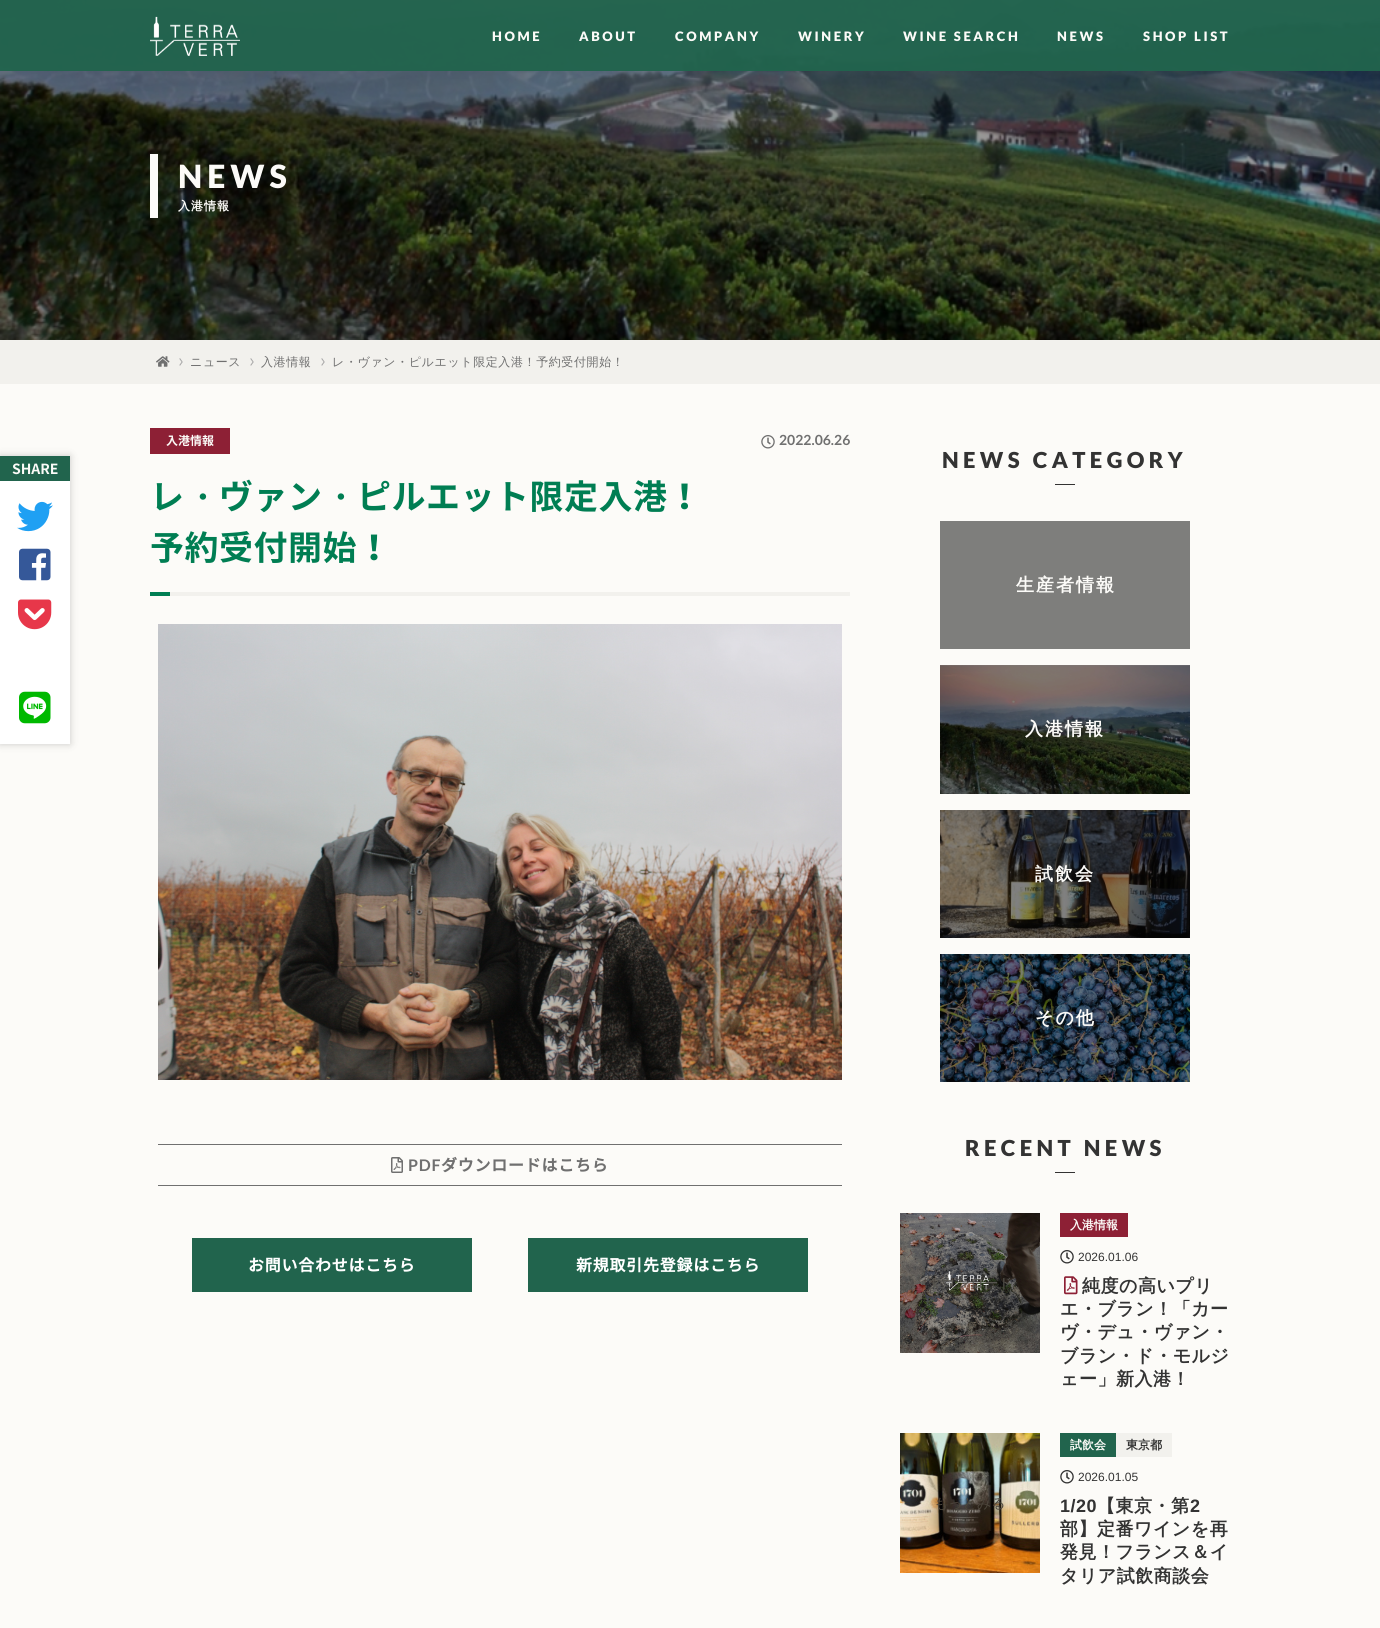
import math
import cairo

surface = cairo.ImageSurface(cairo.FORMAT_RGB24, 1380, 1628)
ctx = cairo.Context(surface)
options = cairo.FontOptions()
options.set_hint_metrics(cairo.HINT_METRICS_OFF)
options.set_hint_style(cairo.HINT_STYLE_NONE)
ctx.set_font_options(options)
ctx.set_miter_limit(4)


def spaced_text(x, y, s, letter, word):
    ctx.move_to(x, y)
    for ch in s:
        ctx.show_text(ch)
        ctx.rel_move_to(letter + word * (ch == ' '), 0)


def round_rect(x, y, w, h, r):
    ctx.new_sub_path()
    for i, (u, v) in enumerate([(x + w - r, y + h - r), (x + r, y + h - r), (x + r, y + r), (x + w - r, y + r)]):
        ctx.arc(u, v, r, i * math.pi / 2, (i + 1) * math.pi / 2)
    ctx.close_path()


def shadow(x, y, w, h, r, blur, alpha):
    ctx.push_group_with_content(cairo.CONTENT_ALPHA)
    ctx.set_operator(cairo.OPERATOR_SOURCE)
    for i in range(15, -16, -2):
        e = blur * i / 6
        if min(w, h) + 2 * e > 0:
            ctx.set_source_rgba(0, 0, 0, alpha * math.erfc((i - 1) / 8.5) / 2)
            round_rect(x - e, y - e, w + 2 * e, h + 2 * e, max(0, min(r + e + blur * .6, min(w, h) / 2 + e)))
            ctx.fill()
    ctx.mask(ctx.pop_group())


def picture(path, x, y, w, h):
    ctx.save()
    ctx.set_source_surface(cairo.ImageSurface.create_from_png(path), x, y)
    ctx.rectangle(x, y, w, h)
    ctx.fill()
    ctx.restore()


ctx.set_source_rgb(0.988, 0.984, 0.969)
ctx.paint()
picture("img2.png", 0, 0, 1380, 340)
ctx.set_source_rgba(0.129, 0.392, 0.302, 0.95)
ctx.rectangle(0, 0, 1380, 71)
ctx.fill()
picture("img1.png", 150, 16, 90, 40)
ctx.select_font_face("Lato Black")
ctx.set_font_size(13)
ctx.set_source_rgb(0.988, 0.984, 0.969)
spaced_text(492, 41, "HOME", 2.6, 0)
spaced_text(579, 41, "ABOUT", 2.6, 0)
spaced_text(675, 41, "COMPANY", 2.6, 0)
spaced_text(798, 41, "WINERY", 2.6, 0)
spaced_text(903, 41, "WINE SEARCH", 2.6, 0)
spaced_text(1057, 41, "NEWS", 2.6, 0)
spaced_text(1143, 41, "SHOP LIST", 2.6, 0)
ctx.rectangle(150, 154, 8, 64)
ctx.fill()
ctx.set_font_size(32)
spaced_text(178, 188, "NEWS", 5, 0)
ctx.select_font_face("WenQuanYi Zen Hei", cairo.FONT_SLANT_NORMAL, cairo.FONT_WEIGHT_BOLD)
ctx.set_font_size(12)
spaced_text(178, 210, "入港情報", 1, 0)
ctx.set_source_rgb(0.949, 0.945, 0.929)
ctx.rectangle(0, 340, 1380, 44)
ctx.fill()
picture("img3.png", 179, 358, 4, 8)
picture("img4.png", 156, 356, 14, 11)
picture("img3.png", 250, 358, 4, 8)
ctx.select_font_face("WenQuanYi Zen Hei Medium")
ctx.set_source_rgb(0.439, 0.439, 0.439)
spaced_text(190, 366, "ニュース", 0.6, 0)
picture("img3.png", 321, 358, 4, 8)
spaced_text(261, 366, "入港情報", 0.6, 0)
spaced_text(332, 366, "レ・ヴァン・ピルエット限定入港！予約受付開始！", 0.6, 0)
ctx.set_source_rgb(0, 0, 0)
shadow(0, 456, 70, 288, 0, 4, 0.2)
ctx.set_source_rgb(1, 1, 1)
ctx.rectangle(0, 481, 70, 263)
ctx.fill()
ctx.set_source_rgb(0.129, 0.392, 0.302)
ctx.rectangle(0, 456, 70, 25)
ctx.fill()
ctx.select_font_face("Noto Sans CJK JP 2", cairo.FONT_SLANT_NORMAL, cairo.FONT_WEIGHT_BOLD)
ctx.set_font_size(14)
ctx.set_source_rgb(0.988, 0.984, 0.969)
ctx.move_to(12, 474)
ctx.show_text("SHARE")
picture("img5.png", 17, 501, 36, 31)
picture("img6.png", 19, 548, 32, 33)
picture("img7.png", 18, 599, 34, 31)
picture("img8.png", 19, 691, 32, 33)
ctx.set_source_rgb(0.949, 0.945, 0.929)
ctx.rectangle(170, 592, 680, 4)
ctx.fill()
ctx.set_source_rgb(0.553, 0.125, 0.208)
ctx.rectangle(150, 428, 80, 26)
ctx.fill()
ctx.set_font_size(12)
ctx.set_source_rgb(0.988, 0.984, 0.969)
ctx.move_to(166, 445)
ctx.show_text("入港情報")
picture("img9.png", 761, 435, 14, 14)
ctx.select_font_face("Lato", cairo.FONT_SLANT_NORMAL, cairo.FONT_WEIGHT_BOLD)
ctx.set_font_size(14)
ctx.set_source_rgb(0.439, 0.439, 0.439)
ctx.move_to(779, 445)
ctx.show_text("2022.06.26")
ctx.select_font_face("Noto Sans CJK JP 2", cairo.FONT_SLANT_NORMAL, cairo.FONT_WEIGHT_BOLD)
ctx.set_font_size(34)
ctx.set_source_rgb(0, 0.494, 0.325)
spaced_text(150, 509, "レ", 0.5, 0)
ctx.select_font_face("WenQuanYi Zen Hei", cairo.FONT_SLANT_NORMAL, cairo.FONT_WEIGHT_BOLD)
spaced_text(185, 509, "・", 0.5, 0)
ctx.select_font_face("Noto Sans CJK JP 2", cairo.FONT_SLANT_NORMAL, cairo.FONT_WEIGHT_BOLD)
spaced_text(219, 509, "ヴァン", 0.5, 0)
ctx.select_font_face("WenQuanYi Zen Hei", cairo.FONT_SLANT_NORMAL, cairo.FONT_WEIGHT_BOLD)
spaced_text(323, 509, "・", 0.5, 0)
ctx.select_font_face("Noto Sans CJK JP 2", cairo.FONT_SLANT_NORMAL, cairo.FONT_WEIGHT_BOLD)
spaced_text(357, 509, "ピルエット限定入港！", 0.5, 0)
spaced_text(150, 560, "予約受付開始！", 0.5, 0)
ctx.rectangle(150, 592, 20, 4)
ctx.fill()
picture("img10.png", 158, 624, 684, 456)
ctx.set_source_rgb(0.439, 0.439, 0.439)
ctx.rectangle(158, 1144, 684, 1)
ctx.fill()
ctx.rectangle(158, 1185, 684, 1)
ctx.fill()
picture("img11.png", 391, 1157, 12, 16)
ctx.select_font_face("Lato", cairo.FONT_SLANT_NORMAL, cairo.FONT_WEIGHT_BOLD)
ctx.set_font_size(16)
spaced_text(408, 1171, "PDF", 0.75, 0)
ctx.select_font_face("Noto Sans CJK JP", cairo.FONT_SLANT_NORMAL, cairo.FONT_WEIGHT_BOLD)
spaced_text(441, 1171, "ダウンロードはこちら", 0.75, 0)
ctx.set_source_rgb(0.129, 0.392, 0.302)
ctx.rectangle(192, 1238, 280, 54)
ctx.fill()
ctx.set_source_rgb(1, 1, 1)
spaced_text(248, 1271, "お問い合わせはこちら", 0.75, 0)
ctx.set_source_rgb(0.129, 0.392, 0.302)
ctx.rectangle(528, 1238, 280, 54)
ctx.fill()
ctx.set_source_rgb(1, 1, 1)
spaced_text(576, 1271, "新規取引先登録はこちら", 0.75, 0)
ctx.select_font_face("Lato Black")
ctx.set_font_size(22)
ctx.set_source_rgb(0.2, 0.2, 0.2)
spaced_text(942, 468, "NEWS CATEGORY", 4.4, 0)
ctx.rectangle(1055, 484, 20, 1)
ctx.fill()
ctx.set_source_rgb(0.494, 0.494, 0.486)
ctx.rectangle(940, 521, 250, 128)
ctx.fill()
ctx.select_font_face("WenQuanYi Zen Hei", cairo.FONT_SLANT_NORMAL, cairo.FONT_WEIGHT_BOLD)
ctx.set_font_size(18)
ctx.set_source_rgb(0.988, 0.984, 0.969)
spaced_text(1016, 591, "生産者情報", 2, 0)
picture("img12.png", 940, 665, 250, 129)
spaced_text(1025, 735, "入港情報", 2, 0)
picture("img13.png", 940, 810, 250, 128)
spaced_text(1035, 880, "試飲会", 2, 0)
picture("img14.png", 940, 954, 250, 128)
spaced_text(1035, 1024, "その他", 2, 0)
ctx.select_font_face("Lato Black")
ctx.set_font_size(22)
ctx.set_source_rgb(0.2, 0.2, 0.2)
spaced_text(965, 1156, "RECENT NEWS", 4.4, 0)
ctx.rectangle(1055, 1172, 20, 1)
ctx.fill()
picture("img15.png", 900, 1213, 140, 140)
ctx.select_font_face("WenQuanYi Zen Hei Medium")
ctx.set_font_size(14)
ctx.set_source_rgb(0.337, 0.329, 0.306)
ctx.move_to(927, 1288)
ctx.show_text("ダウンロード")
ctx.set_source_rgb(0.553, 0.125, 0.208)
ctx.rectangle(1060, 1213, 68, 24)
ctx.fill()
ctx.select_font_face("WenQuanYi Zen Hei", cairo.FONT_SLANT_NORMAL, cairo.FONT_WEIGHT_BOLD)
ctx.set_font_size(12)
ctx.set_source_rgb(0.988, 0.984, 0.969)
ctx.move_to(1070, 1229)
ctx.show_text("入港情報")
picture("img16.png", 1060, 1250, 14, 14)
ctx.select_font_face("Liberation Sans")
ctx.set_source_rgb(0.2, 0.2, 0.2)
ctx.move_to(1078, 1261)
ctx.show_text("2026.01.06")
picture("img17.png", 1064, 1276, 14, 19)
ctx.select_font_face("WenQuanYi Zen Hei", cairo.FONT_SLANT_NORMAL, cairo.FONT_WEIGHT_BOLD)
ctx.set_font_size(18)
spaced_text(1082, 1292, "純度の高いプリ", 0.5, 0)
spaced_text(1060, 1315, "エ・ブラン！「カー", 0.5, 0)
spaced_text(1060, 1338, "ヴ・デュ・ヴァン・", 0.5, 0)
spaced_text(1060, 1362, "ブラン・ド・モルジ", 0.5, 0)
spaced_text(1060, 1385, "ェー」新入港！", 0.5, 0)
picture("img18.png", 900, 1433, 140, 140)
ctx.select_font_face("WenQuanYi Zen Hei Medium")
ctx.set_font_size(14)
ctx.set_source_rgb(0.298, 0.271, 0.231)
ctx.move_to(934, 1508)
ctx.show_text("もっとみる")
ctx.set_source_rgb(0.129, 0.392, 0.302)
ctx.rectangle(1060, 1433, 56, 24)
ctx.fill()
ctx.select_font_face("WenQuanYi Zen Hei", cairo.FONT_SLANT_NORMAL, cairo.FONT_WEIGHT_BOLD)
ctx.set_font_size(12)
ctx.set_source_rgb(0.988, 0.984, 0.969)
ctx.move_to(1070, 1449)
ctx.show_text("試飲会")
ctx.set_source_rgb(0.949, 0.945, 0.929)
ctx.rectangle(1116, 1433, 56, 24)
ctx.fill()
ctx.set_source_rgb(0.2, 0.2, 0.2)
ctx.move_to(1126, 1449)
ctx.show_text("東京都")
picture("img16.png", 1060, 1470, 14, 14)
ctx.select_font_face("Liberation Sans")
ctx.move_to(1078, 1481)
ctx.show_text("2026.01.05")
ctx.select_font_face("Liberation Sans", cairo.FONT_SLANT_NORMAL, cairo.FONT_WEIGHT_BOLD)
ctx.set_font_size(18)
spaced_text(1060, 1512, "1/20", 0.5, 0)
ctx.select_font_face("WenQuanYi Zen Hei", cairo.FONT_SLANT_NORMAL, cairo.FONT_WEIGHT_BOLD)
spaced_text(1097, 1512, "【東京・第", 0.5, 0)
ctx.select_font_face("Liberation Sans", cairo.FONT_SLANT_NORMAL, cairo.FONT_WEIGHT_BOLD)
spaced_text(1190, 1512, "2", 0.5, 0)
ctx.select_font_face("WenQuanYi Zen Hei", cairo.FONT_SLANT_NORMAL, cairo.FONT_WEIGHT_BOLD)
spaced_text(1060, 1535, "部】定番ワインを再", 0.5, 0)
spaced_text(1060, 1558, "発見！フランス＆イ", 0.5, 0)
spaced_text(1060, 1582, "タリア試飲商談会", 0.5, 0)
surface.write_to_png("page.png")
